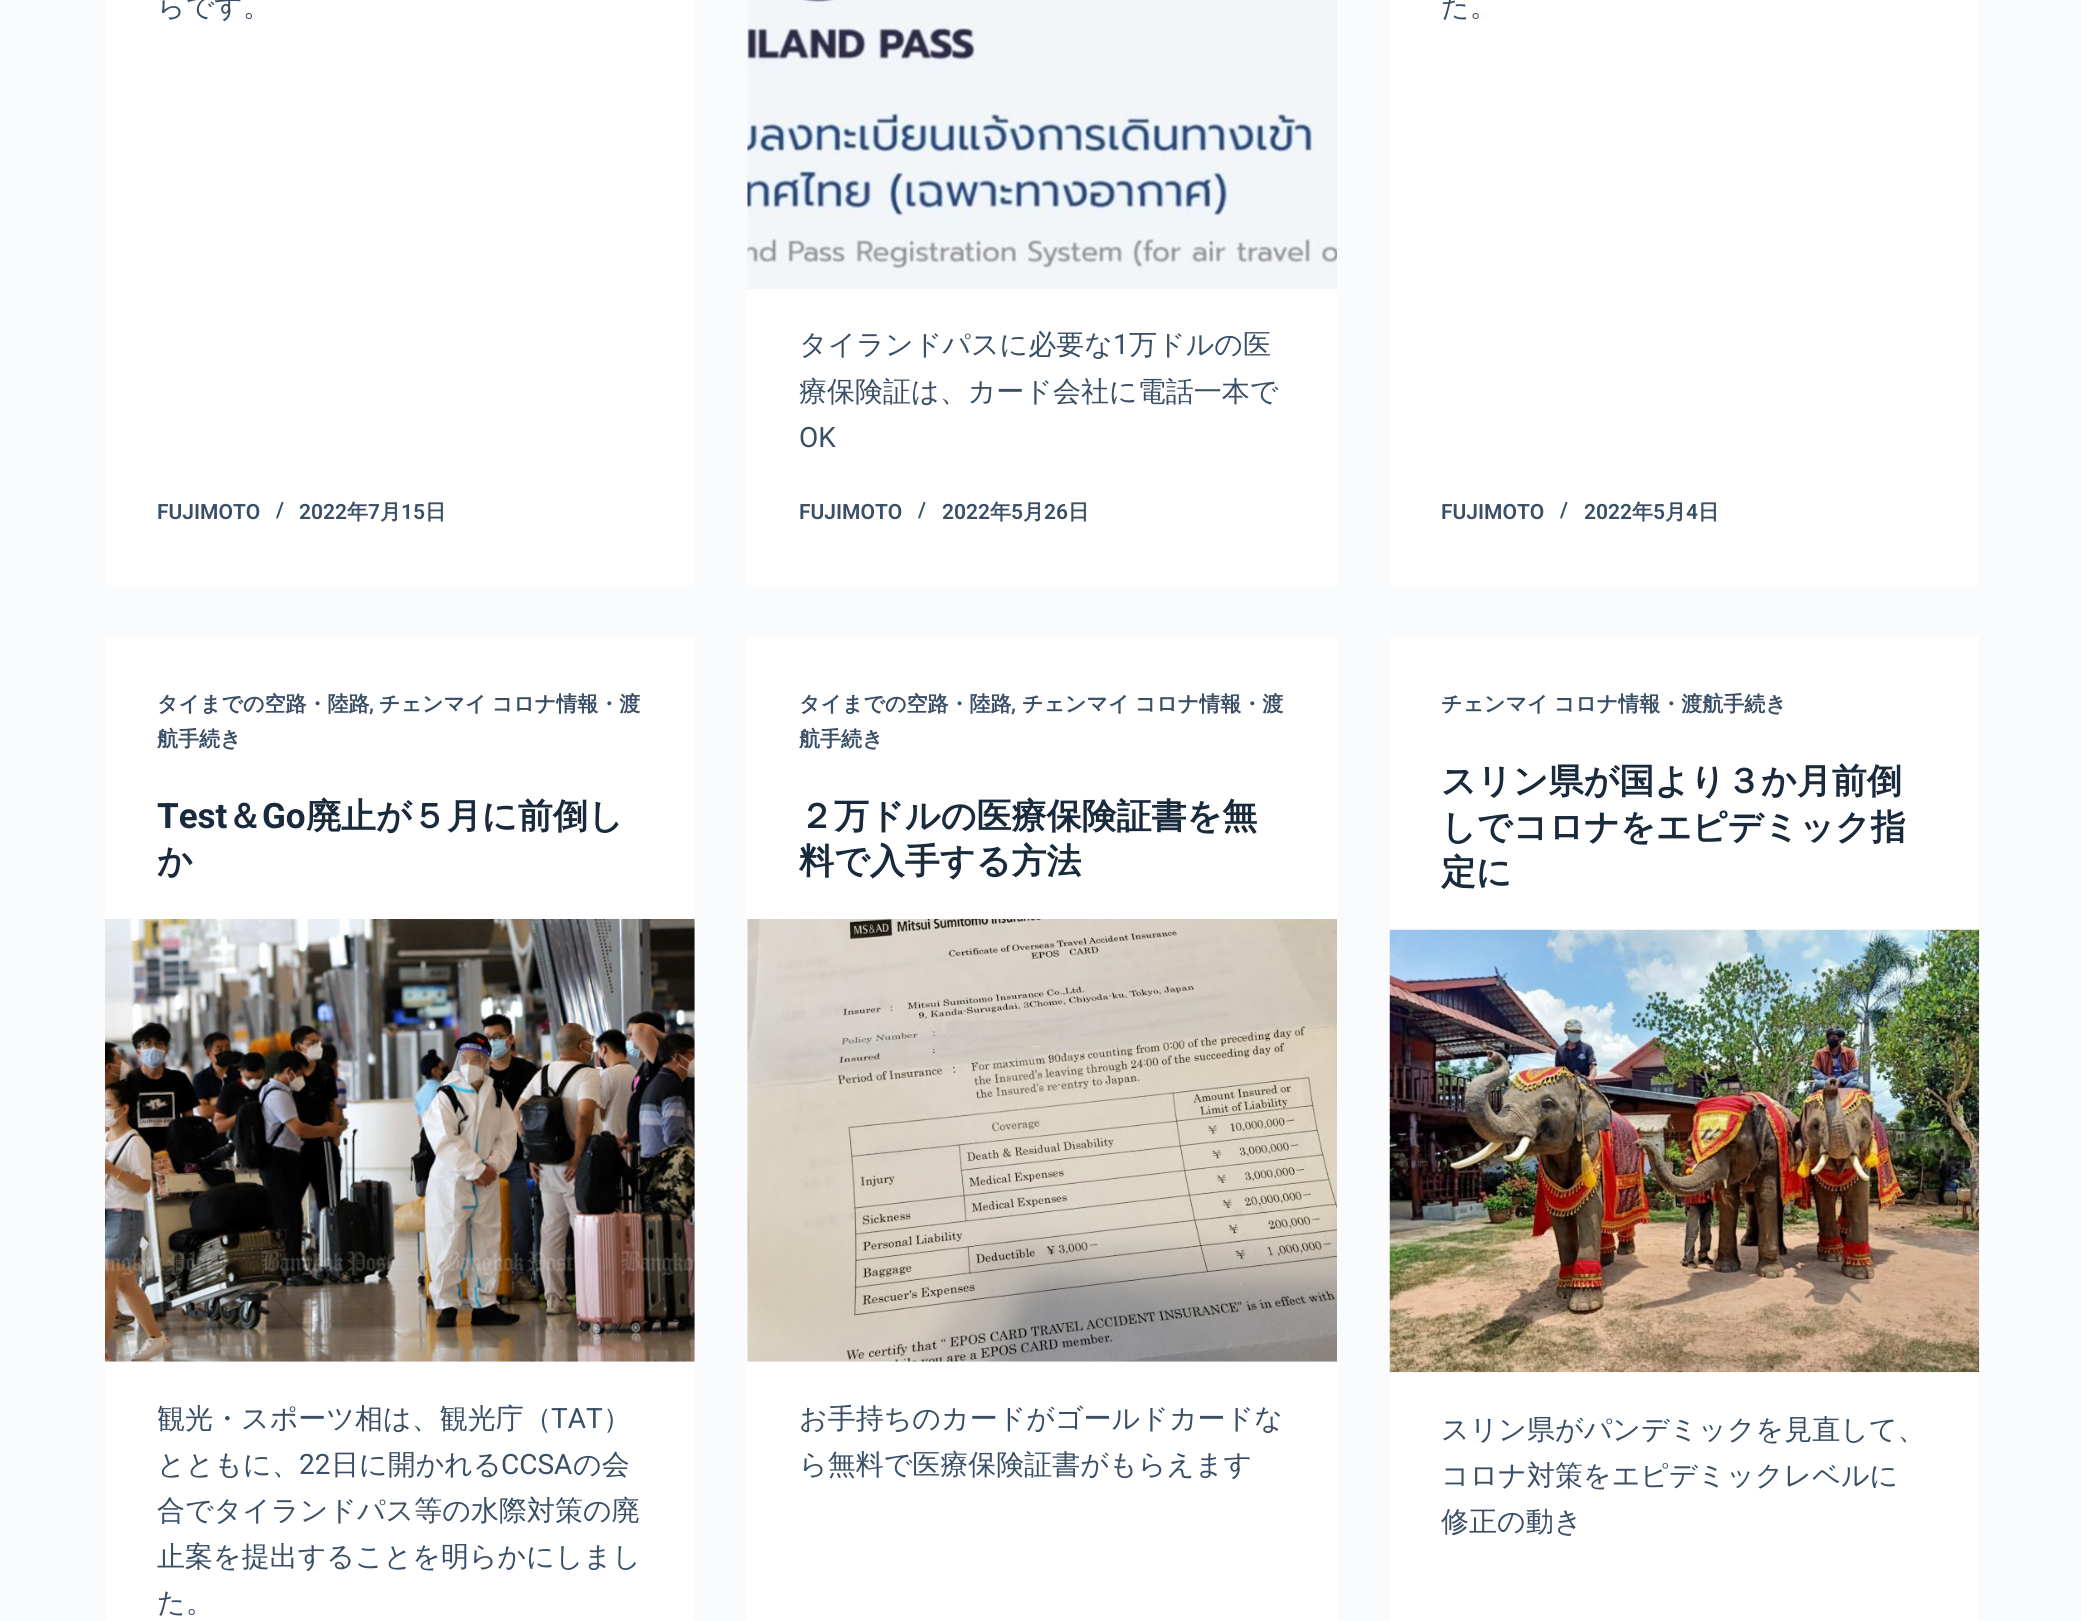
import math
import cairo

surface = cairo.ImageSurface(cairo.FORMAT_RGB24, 2081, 1621)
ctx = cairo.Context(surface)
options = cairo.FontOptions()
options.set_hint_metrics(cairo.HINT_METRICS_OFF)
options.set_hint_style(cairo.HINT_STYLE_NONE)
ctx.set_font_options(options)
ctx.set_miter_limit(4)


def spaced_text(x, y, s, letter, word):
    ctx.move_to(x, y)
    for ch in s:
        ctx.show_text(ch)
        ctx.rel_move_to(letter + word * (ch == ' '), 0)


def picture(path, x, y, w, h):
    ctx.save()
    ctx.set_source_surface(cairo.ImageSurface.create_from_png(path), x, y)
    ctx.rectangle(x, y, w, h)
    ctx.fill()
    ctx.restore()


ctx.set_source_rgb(0.98, 0.984, 0.988)
ctx.paint()
ctx.set_source_rgb(1, 1, 1)
ctx.rectangle(105, 0, 590, 585)
ctx.fill()
ctx.select_font_face("WenQuanYi Zen Hei Medium")
ctx.set_font_size(28)
ctx.set_source_rgb(0.227, 0.31, 0.4)
ctx.move_to(157, 16)
ctx.show_text("らです。")
ctx.select_font_face("Roboto SemiBold")
ctx.set_font_size(21)
ctx.move_to(157, 519)
ctx.show_text("FUJIMOTO")
ctx.move_to(276, 517)
ctx.show_text("/")
ctx.move_to(299, 519)
ctx.show_text("2022")
ctx.select_font_face("WenQuanYi Zen Hei", cairo.FONT_SLANT_NORMAL, cairo.FONT_WEIGHT_BOLD)
ctx.move_to(347, 519)
ctx.show_text("年")
ctx.select_font_face("Roboto SemiBold")
ctx.move_to(368, 519)
ctx.show_text("7")
ctx.select_font_face("WenQuanYi Zen Hei", cairo.FONT_SLANT_NORMAL, cairo.FONT_WEIGHT_BOLD)
ctx.move_to(380, 519)
ctx.show_text("月")
ctx.select_font_face("Roboto SemiBold")
ctx.move_to(401, 519)
ctx.show_text("15")
ctx.select_font_face("WenQuanYi Zen Hei", cairo.FONT_SLANT_NORMAL, cairo.FONT_WEIGHT_BOLD)
ctx.move_to(425, 519)
ctx.show_text("日")
ctx.set_source_rgb(1, 1, 1)
ctx.rectangle(747, 0, 590, 585)
ctx.fill()
picture("img1.png", 747, 0, 590, 289)
ctx.select_font_face("WenQuanYi Zen Hei Medium")
ctx.set_font_size(28)
ctx.set_source_rgb(0.227, 0.31, 0.4)
ctx.move_to(799, 354)
ctx.show_text("タイランドパスに必要な")
ctx.select_font_face("Roboto")
ctx.move_to(1113, 354)
ctx.show_text("1")
ctx.select_font_face("WenQuanYi Zen Hei Medium")
ctx.move_to(1129, 354)
ctx.show_text("万ドルの医")
ctx.move_to(799, 401)
ctx.show_text("療保険証は、カード会社に電話一本で")
ctx.select_font_face("Roboto")
ctx.move_to(799, 447)
ctx.show_text("OK")
ctx.select_font_face("Roboto SemiBold")
ctx.set_font_size(21)
ctx.move_to(799, 519)
ctx.show_text("FUJIMOTO")
ctx.move_to(918, 517)
ctx.show_text("/")
ctx.move_to(942, 519)
ctx.show_text("2022")
ctx.select_font_face("WenQuanYi Zen Hei", cairo.FONT_SLANT_NORMAL, cairo.FONT_WEIGHT_BOLD)
ctx.move_to(990, 519)
ctx.show_text("年")
ctx.select_font_face("Roboto SemiBold")
ctx.move_to(1011, 519)
ctx.show_text("5")
ctx.select_font_face("WenQuanYi Zen Hei", cairo.FONT_SLANT_NORMAL, cairo.FONT_WEIGHT_BOLD)
ctx.move_to(1023, 519)
ctx.show_text("月")
ctx.select_font_face("Roboto SemiBold")
ctx.move_to(1044, 519)
ctx.show_text("26")
ctx.select_font_face("WenQuanYi Zen Hei", cairo.FONT_SLANT_NORMAL, cairo.FONT_WEIGHT_BOLD)
ctx.move_to(1068, 519)
ctx.show_text("日")
ctx.set_source_rgb(1, 1, 1)
ctx.rectangle(1390, 0, 589, 585)
ctx.fill()
ctx.select_font_face("WenQuanYi Zen Hei Medium")
ctx.set_font_size(28)
ctx.set_source_rgb(0.227, 0.31, 0.4)
ctx.move_to(1441, 16)
ctx.show_text("た。")
ctx.select_font_face("Roboto SemiBold")
ctx.set_font_size(21)
ctx.move_to(1441, 519)
ctx.show_text("FUJIMOTO")
ctx.move_to(1560, 517)
ctx.show_text("/")
ctx.move_to(1584, 519)
ctx.show_text("2022")
ctx.select_font_face("WenQuanYi Zen Hei", cairo.FONT_SLANT_NORMAL, cairo.FONT_WEIGHT_BOLD)
ctx.move_to(1632, 519)
ctx.show_text("年")
ctx.select_font_face("Roboto SemiBold")
ctx.move_to(1653, 519)
ctx.show_text("5")
ctx.select_font_face("WenQuanYi Zen Hei", cairo.FONT_SLANT_NORMAL, cairo.FONT_WEIGHT_BOLD)
ctx.move_to(1665, 519)
ctx.show_text("月")
ctx.select_font_face("Roboto SemiBold")
ctx.move_to(1686, 519)
ctx.show_text("4")
ctx.select_font_face("WenQuanYi Zen Hei", cairo.FONT_SLANT_NORMAL, cairo.FONT_WEIGHT_BOLD)
ctx.move_to(1698, 519)
ctx.show_text("日")
ctx.set_source_rgb(1, 1, 1)
ctx.rectangle(105, 637, 590, 984)
ctx.fill()
ctx.set_source_rgb(0.227, 0.31, 0.4)
ctx.move_to(157, 711)
ctx.show_text("タイまでの空路・陸路")
ctx.select_font_face("Roboto SemiBold")
ctx.move_to(369, 711)
ctx.show_text(",")
ctx.select_font_face("WenQuanYi Zen Hei", cairo.FONT_SLANT_NORMAL, cairo.FONT_WEIGHT_BOLD)
spaced_text(379, 711, "チェンマイ コロナ情報・渡", 0, -1)
ctx.move_to(157, 746)
ctx.show_text("航手続き")
ctx.select_font_face("Roboto", cairo.FONT_SLANT_NORMAL, cairo.FONT_WEIGHT_BOLD)
ctx.set_font_size(35)
ctx.set_source_rgb(0.098, 0.165, 0.239)
ctx.move_to(157, 828)
ctx.show_text("Test")
ctx.select_font_face("WenQuanYi Zen Hei", cairo.FONT_SLANT_NORMAL, cairo.FONT_WEIGHT_BOLD)
ctx.move_to(227, 828)
ctx.show_text("＆")
ctx.select_font_face("Roboto", cairo.FONT_SLANT_NORMAL, cairo.FONT_WEIGHT_BOLD)
ctx.move_to(262, 828)
ctx.show_text("Go")
ctx.select_font_face("WenQuanYi Zen Hei", cairo.FONT_SLANT_NORMAL, cairo.FONT_WEIGHT_BOLD)
ctx.move_to(306, 828)
ctx.show_text("廃止が５月に前倒し")
ctx.move_to(157, 873)
ctx.show_text("か")
picture("img2.png", 105, 919, 590, 443)
ctx.select_font_face("WenQuanYi Zen Hei Medium")
ctx.set_font_size(28)
ctx.set_source_rgb(0.227, 0.31, 0.4)
ctx.move_to(157, 1428)
ctx.show_text("観光・スポーツ相は、観光庁（")
ctx.select_font_face("Roboto")
ctx.move_to(551, 1428)
ctx.show_text("TAT")
ctx.select_font_face("WenQuanYi Zen Hei Medium")
ctx.move_to(603, 1428)
ctx.show_text("）")
ctx.move_to(157, 1474)
ctx.show_text("とともに、")
ctx.select_font_face("Roboto")
ctx.move_to(299, 1474)
ctx.show_text("22")
ctx.select_font_face("WenQuanYi Zen Hei Medium")
ctx.move_to(331, 1474)
ctx.show_text("日に開かれる")
ctx.select_font_face("Roboto")
ctx.move_to(501, 1474)
ctx.show_text("CCSA")
ctx.select_font_face("WenQuanYi Zen Hei Medium")
ctx.move_to(573, 1474)
ctx.show_text("の会")
ctx.move_to(157, 1520)
ctx.show_text("合でタイランドパス等の水際対策の廃")
ctx.move_to(157, 1566)
ctx.show_text("止案を提出することを明らかにしまし")
ctx.move_to(157, 1612)
ctx.show_text("た。")
ctx.set_source_rgb(1, 1, 1)
ctx.rectangle(747, 637, 590, 984)
ctx.fill()
ctx.select_font_face("WenQuanYi Zen Hei", cairo.FONT_SLANT_NORMAL, cairo.FONT_WEIGHT_BOLD)
ctx.set_font_size(21)
ctx.set_source_rgb(0.227, 0.31, 0.4)
ctx.move_to(799, 711)
ctx.show_text("タイまでの空路・陸路")
ctx.select_font_face("Roboto SemiBold")
ctx.move_to(1011, 711)
ctx.show_text(",")
ctx.select_font_face("WenQuanYi Zen Hei", cairo.FONT_SLANT_NORMAL, cairo.FONT_WEIGHT_BOLD)
spaced_text(1022, 711, "チェンマイ コロナ情報・渡", 0, -1)
ctx.move_to(799, 746)
ctx.show_text("航手続き")
ctx.set_font_size(35)
ctx.set_source_rgb(0.098, 0.165, 0.239)
ctx.move_to(799, 828)
ctx.show_text("２万ドルの医療保険証書を無")
ctx.move_to(799, 873)
ctx.show_text("料で入手する方法")
picture("img3.png", 747, 919, 590, 443)
ctx.select_font_face("WenQuanYi Zen Hei Medium")
ctx.set_font_size(28)
ctx.set_source_rgb(0.227, 0.31, 0.4)
ctx.move_to(799, 1428)
ctx.show_text("お手持ちのカードがゴールドカードな")
ctx.move_to(799, 1474)
ctx.show_text("ら無料で医療保険証書がもらえます")
ctx.set_source_rgb(1, 1, 1)
ctx.rectangle(1390, 637, 589, 984)
ctx.fill()
ctx.select_font_face("WenQuanYi Zen Hei", cairo.FONT_SLANT_NORMAL, cairo.FONT_WEIGHT_BOLD)
ctx.set_font_size(21)
ctx.set_source_rgb(0.227, 0.31, 0.4)
spaced_text(1441, 711, "チェンマイ コロナ情報・渡航手続き", 0, -1)
ctx.set_font_size(35)
ctx.set_source_rgb(0.098, 0.165, 0.239)
ctx.move_to(1441, 793)
ctx.show_text("スリン県が国より３か月前倒")
ctx.move_to(1441, 839)
ctx.show_text("しでコロナをエピデミック指")
ctx.move_to(1441, 884)
ctx.show_text("定に")
picture("img4.png", 1389, 929, 591, 444)
ctx.select_font_face("WenQuanYi Zen Hei Medium")
ctx.set_font_size(28)
ctx.set_source_rgb(0.227, 0.31, 0.4)
ctx.move_to(1441, 1439)
ctx.show_text("スリン県がパンデミックを見直して、")
ctx.move_to(1441, 1485)
ctx.show_text("コロナ対策をエピデミックレベルに")
ctx.move_to(1441, 1531)
ctx.show_text("修正の動き")
surface.write_to_png("page.png")
